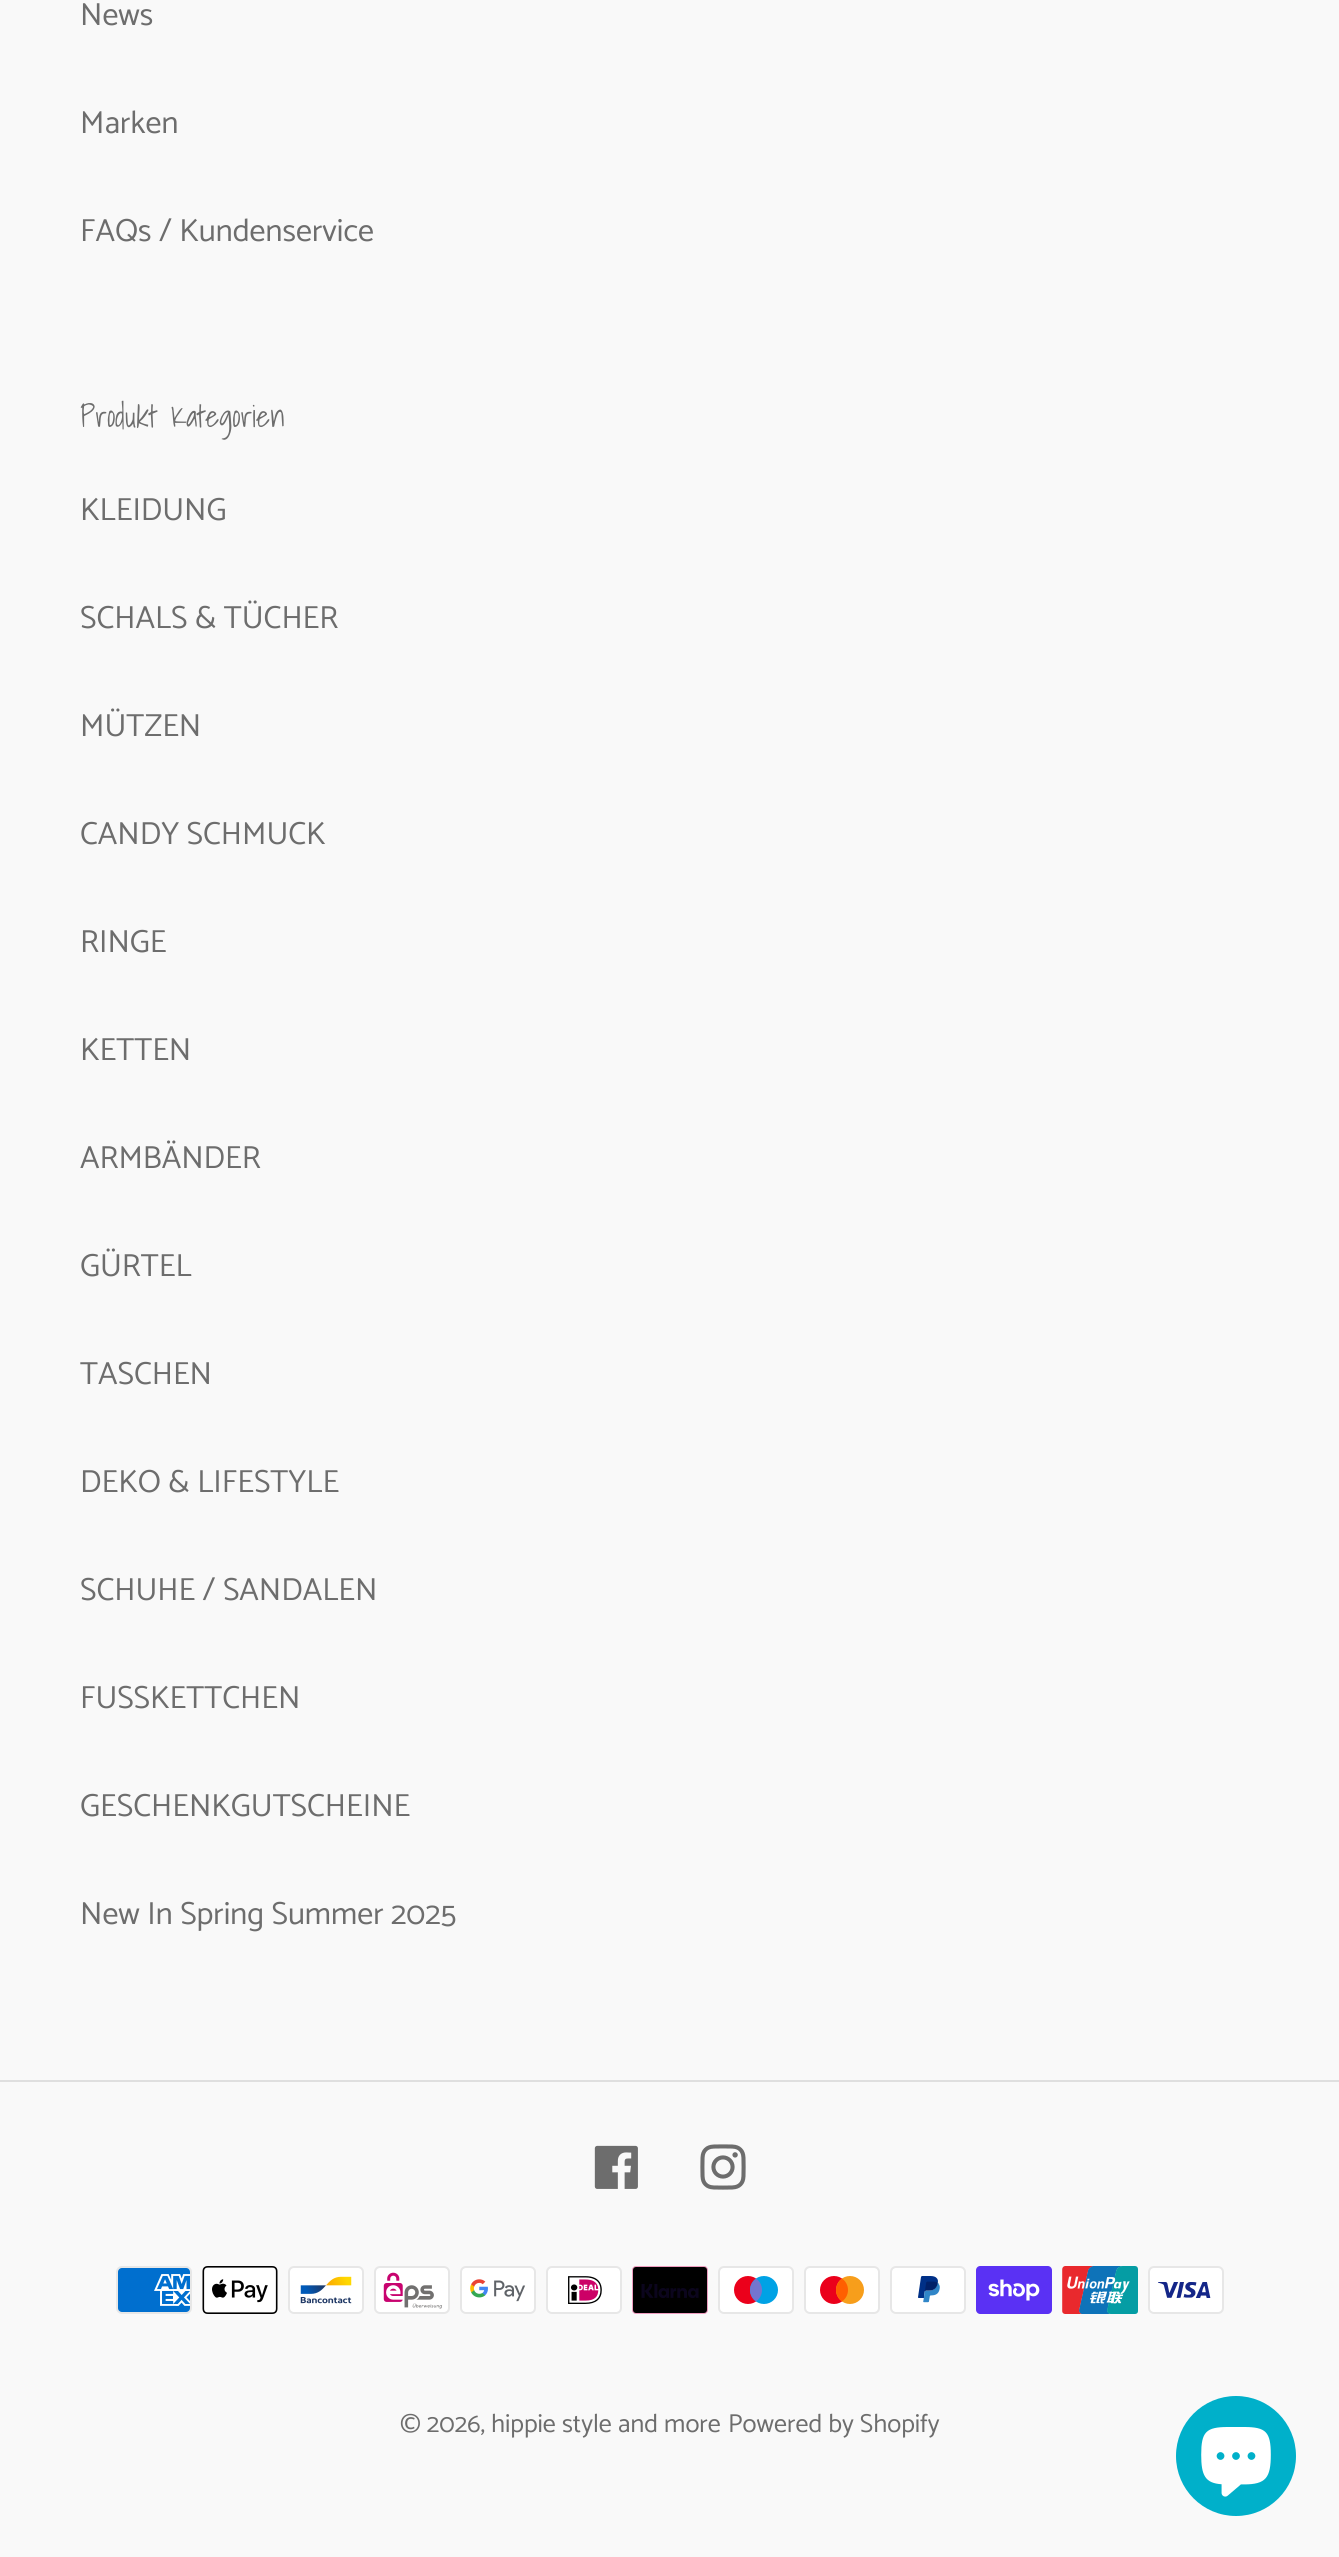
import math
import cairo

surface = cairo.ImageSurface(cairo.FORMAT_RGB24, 1339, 2557)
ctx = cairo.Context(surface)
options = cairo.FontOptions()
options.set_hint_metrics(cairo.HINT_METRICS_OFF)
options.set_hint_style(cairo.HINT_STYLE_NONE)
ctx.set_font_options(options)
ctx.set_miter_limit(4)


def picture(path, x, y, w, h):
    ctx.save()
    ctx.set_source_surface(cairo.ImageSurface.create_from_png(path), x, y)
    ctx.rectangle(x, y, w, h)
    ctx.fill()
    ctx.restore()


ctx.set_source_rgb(0.973, 0.973, 0.973)
ctx.paint()
ctx.select_font_face("Catamaran")
ctx.set_font_size(32)
ctx.set_source_rgb(0.427, 0.427, 0.427)
ctx.move_to(80, 25)
ctx.show_text("News")
ctx.move_to(80, 133)
ctx.show_text("Marken")
ctx.move_to(80, 241)
ctx.show_text("FAQs / Kundenservice")
ctx.select_font_face("Shadows Into Light")
ctx.set_font_size(30)
ctx.move_to(80, 427)
ctx.show_text("Produkt Kategorien")
ctx.select_font_face("Catamaran")
ctx.set_font_size(32)
ctx.move_to(80, 520)
ctx.show_text("KLEIDUNG")
ctx.move_to(80, 628)
ctx.show_text("SCHALS & TÜCHER")
ctx.move_to(80, 736)
ctx.show_text("MÜTZEN")
ctx.move_to(80, 844)
ctx.show_text("CANDY SCHMUCK")
ctx.move_to(80, 952)
ctx.show_text("RINGE")
ctx.move_to(80, 1060)
ctx.show_text("KETTEN")
ctx.move_to(80, 1168)
ctx.show_text("ARMBÄNDER")
ctx.move_to(80, 1276)
ctx.show_text("GÜRTEL")
ctx.move_to(80, 1384)
ctx.show_text("TASCHEN")
ctx.move_to(80, 1492)
ctx.show_text("DEKO & LIFESTYLE")
ctx.move_to(80, 1600)
ctx.show_text("SCHUHE / SANDALEN")
ctx.move_to(80, 1708)
ctx.show_text("FUSSKETTCHEN")
ctx.move_to(80, 1816)
ctx.show_text("GESCHENKGUTSCHEINE")
ctx.move_to(80, 1924)
ctx.show_text("New In Spring Summer 2025")
ctx.set_source_rgb(0.875, 0.875, 0.875)
ctx.rectangle(0, 2080, 1339, 2)
ctx.fill()
picture("img1.png", 594, 2145, 44, 44)
picture("img2.png", 700, 2144, 46, 46)
picture("img3.png", 116, 2266, 76, 48)
picture("img4.png", 202, 2266, 76, 48)
picture("img5.png", 288, 2266, 76, 48)
picture("img6.png", 374, 2266, 76, 48)
picture("img7.png", 460, 2266, 76, 48)
picture("img8.png", 546, 2266, 76, 48)
picture("img9.png", 632, 2266, 76, 48)
picture("img10.png", 718, 2266, 76, 48)
picture("img11.png", 804, 2266, 76, 48)
picture("img12.png", 890, 2266, 76, 48)
picture("img13.png", 976, 2266, 76, 48)
picture("img14.png", 1062, 2266, 76, 48)
picture("img15.png", 1148, 2266, 76, 48)
ctx.set_font_size(26)
ctx.set_source_rgb(0.427, 0.427, 0.427)
ctx.move_to(400, 2432)
ctx.show_text("© 2026, hippie style and more")
ctx.move_to(728, 2432)
ctx.show_text("Powered by Shopify")
ctx.set_source_rgb(0, 0.69, 0.792)
ctx.new_path()
ctx.arc(1236, 2456, 60, 0, 2 * math.pi)
ctx.fill()
picture("img16.png", 1201, 2427, 70, 70)
surface.write_to_png("page.png")
